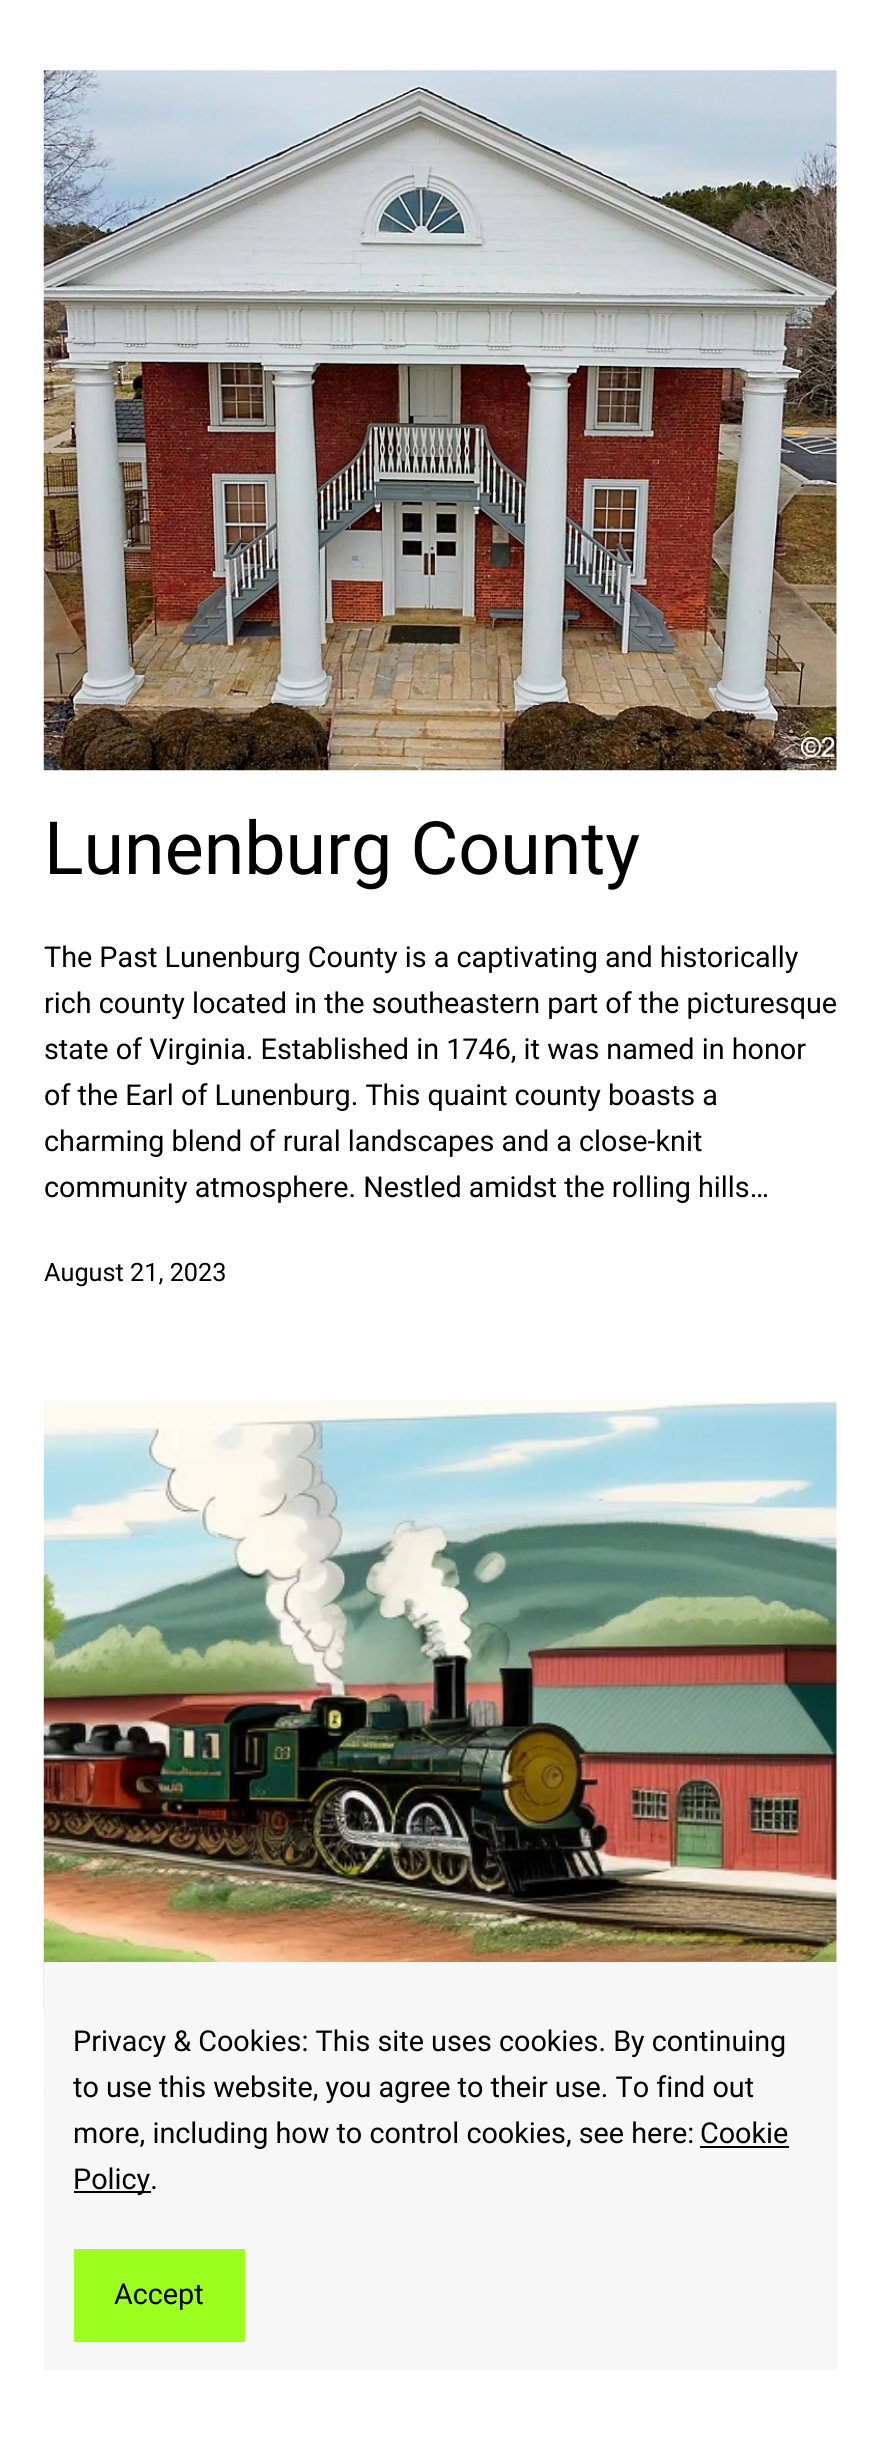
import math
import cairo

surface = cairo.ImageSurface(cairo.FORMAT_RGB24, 879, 2457)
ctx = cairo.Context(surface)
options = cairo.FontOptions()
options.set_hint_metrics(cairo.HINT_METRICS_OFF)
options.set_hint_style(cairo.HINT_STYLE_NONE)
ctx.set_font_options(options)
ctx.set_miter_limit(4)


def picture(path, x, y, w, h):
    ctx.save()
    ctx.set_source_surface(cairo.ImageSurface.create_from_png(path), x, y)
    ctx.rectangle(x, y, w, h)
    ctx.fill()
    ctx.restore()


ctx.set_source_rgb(1, 1, 1)
ctx.paint()
picture("img1.png", 43, 70, 794, 701)
ctx.select_font_face("Roboto")
ctx.set_font_size(73.5)
ctx.set_source_rgb(0, 0, 0)
ctx.move_to(44, 874)
ctx.show_text("Lunenburg County")
ctx.set_font_size(28.75)
ctx.move_to(44, 967)
ctx.show_text("The Past Lunenburg County is a captivating and historically")
ctx.move_to(44, 1013)
ctx.show_text("rich county located in the southeastern part of the picturesque")
ctx.move_to(44, 1059)
ctx.show_text("state of Virginia. Established in 1746, it was named in honor")
ctx.move_to(44, 1105)
ctx.show_text("of the Earl of Lunenburg. This quaint county boasts a")
ctx.move_to(44, 1151)
ctx.show_text("charming blend of rural landscapes and a close-knit")
ctx.move_to(44, 1197)
ctx.show_text("community atmosphere. Nestled amidst the rolling hills…")
ctx.set_font_size(25.25)
ctx.move_to(44, 1281)
ctx.show_text("August 21, 2023")
picture("img2.png", 43, 1400, 794, 701)
ctx.set_source_rgb(0.965, 0.965, 0.965)
ctx.rectangle(44, 1962, 793, 408)
ctx.fill()
ctx.set_font_size(28.75)
ctx.set_source_rgb(0, 0, 0)
ctx.move_to(73, 2051)
ctx.show_text("Privacy & Cookies: This site uses cookies. By continuing")
ctx.move_to(73, 2097)
ctx.show_text("to use this website, you agree to their use. To find out")
ctx.move_to(73, 2143)
ctx.show_text("more, including how to control cookies, see here:")
ctx.move_to(700, 2143)
ctx.show_text("Cookie")
ctx.rectangle(700, 2146, 89, 2)
ctx.fill()
ctx.rectangle(74, 2191, 77, 2)
ctx.fill()
ctx.move_to(73, 2189)
ctx.show_text("Policy.")
ctx.set_source_rgb(0.616, 1, 0.125)
ctx.rectangle(74, 2249, 171, 93)
ctx.fill()
ctx.set_source_rgb(0, 0, 0)
ctx.move_to(114, 2304)
ctx.show_text("Accept")
surface.write_to_png("page.png")
